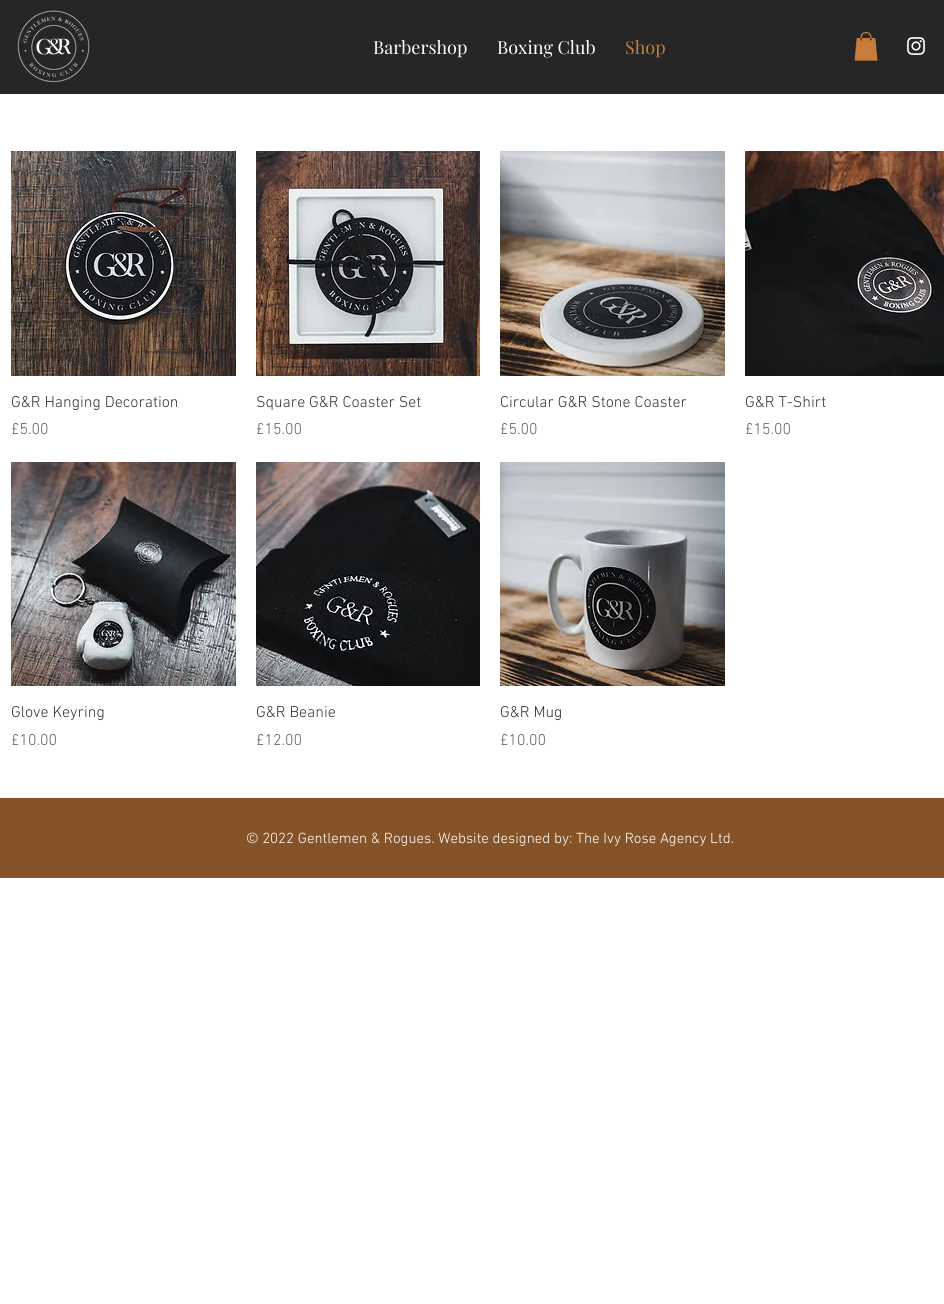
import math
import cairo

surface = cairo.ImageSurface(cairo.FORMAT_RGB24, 944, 1304)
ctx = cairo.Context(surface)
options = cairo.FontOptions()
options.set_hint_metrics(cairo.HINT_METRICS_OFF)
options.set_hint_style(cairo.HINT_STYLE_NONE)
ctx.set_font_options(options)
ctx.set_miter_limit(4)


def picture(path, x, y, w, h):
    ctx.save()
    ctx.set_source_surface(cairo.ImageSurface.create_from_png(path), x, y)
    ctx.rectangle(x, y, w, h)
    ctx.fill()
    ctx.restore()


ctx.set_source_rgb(1, 1, 1)
ctx.paint()
ctx.set_source_rgb(0.149, 0.149, 0.149)
ctx.rectangle(0, 0, 944, 94)
ctx.fill()
picture("img1.png", 17, 10, 73, 73)
ctx.select_font_face("Playfair Display")
ctx.set_font_size(18)
ctx.set_source_rgb(1, 1, 1)
ctx.move_to(373, 54)
ctx.show_text("Barbershop")
ctx.move_to(497, 54)
ctx.show_text("Boxing Club")
ctx.set_source_rgb(0.78, 0.486, 0.231)
ctx.move_to(625, 54)
ctx.show_text("Shop")
picture("img2.png", 854, 32, 24, 29)
picture("img3.png", 907, 37, 18, 18)
picture("img4.png", 11, 151, 225, 225)
ctx.select_font_face("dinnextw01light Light")
ctx.set_font_size(16)
ctx.set_source_rgb(0.212, 0.212, 0.212)
ctx.move_to(11, 407)
ctx.show_text("G&R Hanging Decoration")
ctx.set_source_rgb(0.376, 0.369, 0.369)
ctx.move_to(11, 434)
ctx.show_text("£5.00")
picture("img5.png", 256, 151, 224, 225)
ctx.set_source_rgb(0.212, 0.212, 0.212)
ctx.move_to(256, 407)
ctx.show_text("Square G&R Coaster Set")
ctx.set_source_rgb(0.376, 0.369, 0.369)
ctx.move_to(256, 434)
ctx.show_text("£15.00")
picture("img6.png", 500, 151, 225, 225)
ctx.set_source_rgb(0.212, 0.212, 0.212)
ctx.move_to(500, 407)
ctx.show_text("Circular G&R Stone Coaster")
ctx.set_source_rgb(0.376, 0.369, 0.369)
ctx.move_to(500, 434)
ctx.show_text("£5.00")
picture("img7.png", 745, 151, 199, 225)
ctx.set_source_rgb(0.212, 0.212, 0.212)
ctx.move_to(745, 407)
ctx.show_text("G&R T-Shirt")
ctx.set_source_rgb(0.376, 0.369, 0.369)
ctx.move_to(745, 434)
ctx.show_text("£15.00")
picture("img8.png", 11, 462, 225, 224)
ctx.set_source_rgb(0.212, 0.212, 0.212)
ctx.move_to(11, 717)
ctx.show_text("Glove Keyring")
ctx.set_source_rgb(0.376, 0.369, 0.369)
ctx.move_to(11, 745)
ctx.show_text("£10.00")
picture("img9.png", 256, 462, 224, 224)
ctx.set_source_rgb(0.212, 0.212, 0.212)
ctx.move_to(256, 717)
ctx.show_text("G&R Beanie")
ctx.set_source_rgb(0.376, 0.369, 0.369)
ctx.move_to(256, 745)
ctx.show_text("£12.00")
picture("img10.png", 500, 462, 225, 224)
ctx.set_source_rgb(0.212, 0.212, 0.212)
ctx.move_to(500, 717)
ctx.show_text("G&R Mug")
ctx.set_source_rgb(0.376, 0.369, 0.369)
ctx.move_to(500, 745)
ctx.show_text("£10.00")
ctx.set_source_rgb(0.522, 0.325, 0.153)
ctx.rectangle(0, 798, 944, 80)
ctx.fill()
ctx.set_font_size(15)
ctx.set_source_rgb(1, 1, 1)
ctx.move_to(246, 843)
ctx.show_text("© 2022 Gentlemen & Rogues. Website designed by: The Ivy Rose Agency Ltd.")
surface.write_to_png("page.png")
